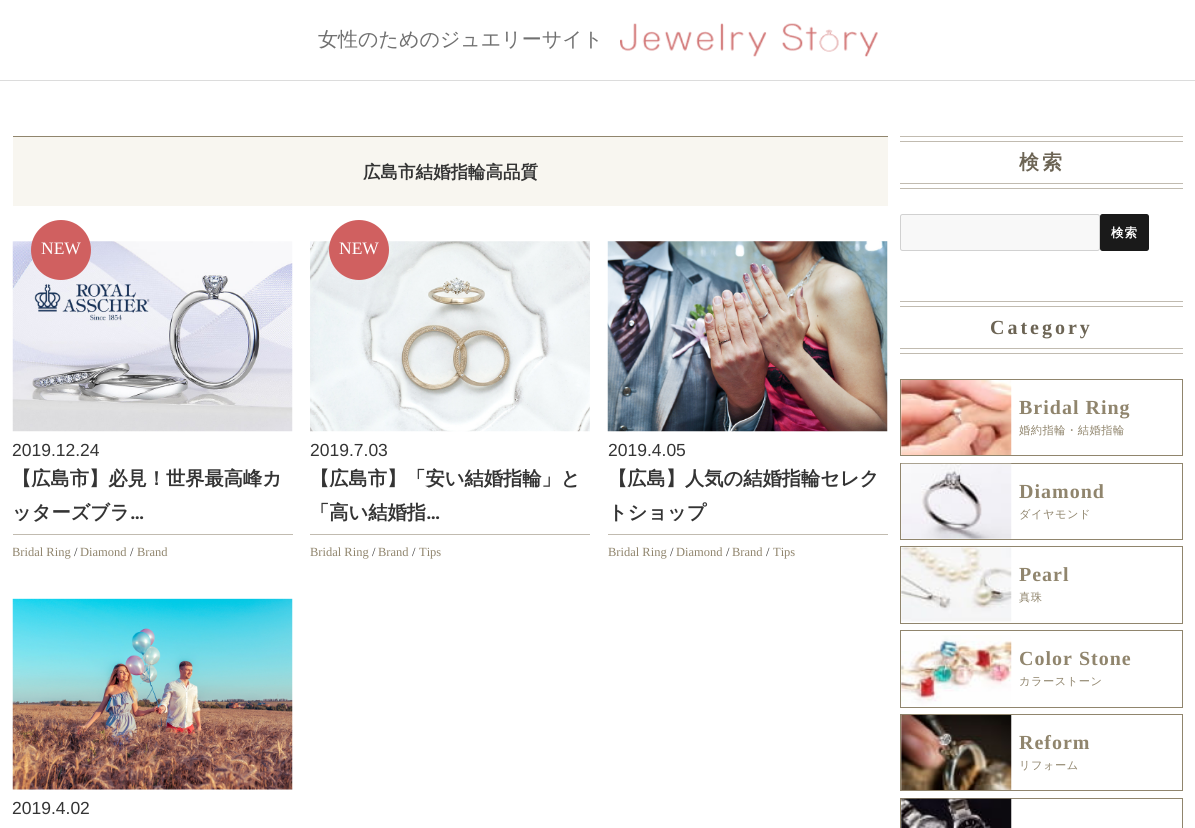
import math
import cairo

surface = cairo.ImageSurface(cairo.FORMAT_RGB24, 1195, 828)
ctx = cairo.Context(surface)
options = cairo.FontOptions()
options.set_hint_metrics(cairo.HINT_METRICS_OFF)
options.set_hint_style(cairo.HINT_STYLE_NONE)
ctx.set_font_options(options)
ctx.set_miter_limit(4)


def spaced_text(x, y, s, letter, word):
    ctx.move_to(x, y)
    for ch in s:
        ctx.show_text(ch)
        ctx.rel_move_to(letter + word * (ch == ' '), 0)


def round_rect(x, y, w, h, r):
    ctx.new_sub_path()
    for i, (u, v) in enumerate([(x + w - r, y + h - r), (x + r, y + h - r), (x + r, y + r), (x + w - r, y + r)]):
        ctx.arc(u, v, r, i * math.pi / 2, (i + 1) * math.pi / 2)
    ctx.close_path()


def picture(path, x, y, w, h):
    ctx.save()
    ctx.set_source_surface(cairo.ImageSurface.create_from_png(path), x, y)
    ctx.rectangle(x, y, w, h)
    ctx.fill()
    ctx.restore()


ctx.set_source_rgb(1, 1, 1)
ctx.paint()
ctx.select_font_face("WenQuanYi Zen Hei Medium")
ctx.set_font_size(20)
ctx.set_source_rgb(0.439, 0.439, 0.439)
ctx.move_to(318, 46)
ctx.show_text("女性のためのジュエリーサイト")
picture("img1.png", 620, 23, 258, 34)
ctx.set_source_rgb(0.863, 0.863, 0.863)
ctx.rectangle(0, 80, 1195, 1)
ctx.fill()
ctx.set_source_rgb(0.969, 0.961, 0.941)
ctx.rectangle(13, 137, 875, 69)
ctx.fill()
ctx.set_source_rgb(0.565, 0.522, 0.427)
ctx.rectangle(13, 136, 875, 1)
ctx.fill()
ctx.select_font_face("WenQuanYi Zen Hei", cairo.FONT_SLANT_NORMAL, cairo.FONT_WEIGHT_BOLD)
ctx.set_font_size(17.5)
ctx.set_source_rgb(0.204, 0.204, 0.204)
ctx.move_to(363, 178)
ctx.show_text("広島市結婚指輪高品質")
picture("img2.png", 12, 241, 281, 191)
ctx.set_source_rgb(0.816, 0.376, 0.376)
ctx.arc(61, 250, 30, 0, 2 * math.pi)
ctx.fill()
ctx.select_font_face("Liberation Serif")
ctx.set_source_rgb(1, 1, 1)
ctx.move_to(41, 254)
ctx.show_text("NEW")
ctx.select_font_face("Liberation Sans")
ctx.set_source_rgb(0.204, 0.204, 0.204)
ctx.move_to(12, 456)
ctx.show_text("2019.12.24")
ctx.select_font_face("WenQuanYi Zen Hei", cairo.FONT_SLANT_NORMAL, cairo.FONT_WEIGHT_BOLD)
ctx.set_font_size(19.25)
ctx.move_to(12, 485)
ctx.show_text("【広島市】必見！世界最高峰カ")
ctx.move_to(12, 519)
ctx.show_text("ッターズブラ")
ctx.select_font_face("Roboto", cairo.FONT_SLANT_NORMAL, cairo.FONT_WEIGHT_BOLD)
ctx.move_to(130, 519)
ctx.show_text("…")
ctx.set_source_rgb(0.757, 0.733, 0.69)
ctx.rectangle(13, 534, 280, 1)
ctx.fill()
ctx.save()
ctx.rectangle(13, 535, 280, 26)
ctx.clip()
ctx.select_font_face("Liberation Serif")
ctx.set_font_size(12.5)
ctx.set_source_rgb(0.565, 0.522, 0.427)
ctx.move_to(12, 556)
ctx.show_text("Bridal Ring")
ctx.restore()
ctx.select_font_face("Liberation Serif")
ctx.set_font_size(12.5)
ctx.set_source_rgb(0.204, 0.204, 0.204)
ctx.move_to(74, 556)
ctx.show_text("/")
ctx.set_source_rgb(0.565, 0.522, 0.427)
ctx.move_to(80, 556)
ctx.show_text("Diamond")
ctx.set_source_rgb(0.204, 0.204, 0.204)
ctx.move_to(130, 556)
ctx.show_text("/")
ctx.set_source_rgb(0.565, 0.522, 0.427)
ctx.move_to(137, 556)
ctx.show_text("Brand")
picture("img3.png", 310, 241, 280, 191)
ctx.set_source_rgb(0.816, 0.376, 0.376)
ctx.arc(359, 250, 30, 0, 2 * math.pi)
ctx.fill()
ctx.set_font_size(17.5)
ctx.set_source_rgb(1, 1, 1)
ctx.move_to(339, 254)
ctx.show_text("NEW")
ctx.select_font_face("Liberation Sans")
ctx.set_source_rgb(0.204, 0.204, 0.204)
ctx.move_to(310, 456)
ctx.show_text("2019.7.03")
ctx.select_font_face("WenQuanYi Zen Hei", cairo.FONT_SLANT_NORMAL, cairo.FONT_WEIGHT_BOLD)
ctx.set_font_size(19.25)
ctx.move_to(310, 485)
ctx.show_text("【広島市】「安い結婚指輪」と")
ctx.move_to(310, 519)
ctx.show_text("「高い結婚指")
ctx.select_font_face("Roboto", cairo.FONT_SLANT_NORMAL, cairo.FONT_WEIGHT_BOLD)
ctx.move_to(426, 519)
ctx.show_text("…")
ctx.set_source_rgb(0.757, 0.733, 0.69)
ctx.rectangle(310, 534, 280, 1)
ctx.fill()
ctx.select_font_face("Liberation Serif")
ctx.set_font_size(12.5)
ctx.set_source_rgb(0.565, 0.522, 0.427)
ctx.move_to(310, 556)
ctx.show_text("Bridal Ring")
ctx.set_source_rgb(0.204, 0.204, 0.204)
ctx.move_to(372, 556)
ctx.show_text("/")
ctx.set_source_rgb(0.565, 0.522, 0.427)
ctx.move_to(378, 556)
ctx.show_text("Brand")
ctx.set_source_rgb(0.204, 0.204, 0.204)
ctx.move_to(412, 556)
ctx.show_text("/")
ctx.set_source_rgb(0.565, 0.522, 0.427)
ctx.move_to(419, 556)
ctx.show_text("Tips")
picture("img4.png", 607, 241, 281, 191)
ctx.select_font_face("Liberation Sans")
ctx.set_font_size(17.5)
ctx.set_source_rgb(0.204, 0.204, 0.204)
ctx.move_to(608, 456)
ctx.show_text("2019.4.05")
ctx.select_font_face("WenQuanYi Zen Hei", cairo.FONT_SLANT_NORMAL, cairo.FONT_WEIGHT_BOLD)
ctx.set_font_size(19.25)
ctx.move_to(608, 485)
ctx.show_text("【広島】人気の結婚指輪セレク")
ctx.move_to(608, 519)
ctx.show_text("トショップ")
ctx.set_source_rgb(0.757, 0.733, 0.69)
ctx.rectangle(608, 534, 280, 1)
ctx.fill()
ctx.select_font_face("Liberation Serif")
ctx.set_font_size(12.5)
ctx.set_source_rgb(0.565, 0.522, 0.427)
ctx.move_to(608, 556)
ctx.show_text("Bridal Ring")
ctx.set_source_rgb(0.204, 0.204, 0.204)
ctx.move_to(670, 556)
ctx.show_text("/")
ctx.set_source_rgb(0.565, 0.522, 0.427)
ctx.move_to(676, 556)
ctx.show_text("Diamond")
ctx.set_source_rgb(0.204, 0.204, 0.204)
ctx.move_to(726, 556)
ctx.show_text("/")
ctx.set_source_rgb(0.565, 0.522, 0.427)
ctx.move_to(732, 556)
ctx.show_text("Brand")
ctx.set_source_rgb(0.204, 0.204, 0.204)
ctx.move_to(766, 556)
ctx.show_text("/")
ctx.set_source_rgb(0.565, 0.522, 0.427)
ctx.move_to(773, 556)
ctx.show_text("Tips")
picture("img5.png", 12, 598, 281, 192)
ctx.select_font_face("Liberation Sans")
ctx.set_font_size(17.5)
ctx.set_source_rgb(0.204, 0.204, 0.204)
ctx.move_to(12, 814)
ctx.show_text("2019.4.02")
ctx.set_source_rgb(0.757, 0.733, 0.69)
ctx.rectangle(900, 136, 283, 1)
ctx.fill()
ctx.rectangle(900, 188, 283, 1)
ctx.fill()
ctx.rectangle(900, 141, 283, 1)
ctx.fill()
ctx.select_font_face("WenQuanYi Zen Hei", cairo.FONT_SLANT_NORMAL, cairo.FONT_WEIGHT_BOLD)
ctx.set_font_size(20)
ctx.set_source_rgb(0.424, 0.392, 0.329)
spaced_text(1019, 169, "検索", 3, 0)
ctx.set_source_rgb(0.757, 0.733, 0.69)
ctx.rectangle(900, 183, 283, 1)
ctx.fill()
ctx.set_source_rgb(0.969, 0.969, 0.969)
round_rect(900.5, 214.5, 199, 36, 2)
ctx.fill_preserve()
ctx.set_source_rgb(0.82, 0.82, 0.82)
ctx.set_line_width(1)
ctx.stroke()
ctx.set_source_rgb(0.102, 0.102, 0.102)
round_rect(1100, 214, 49, 37, 2.5)
ctx.fill()
ctx.set_font_size(12.5)
ctx.set_source_rgb(1, 1, 1)
spaced_text(1111, 237, "検索", 1, 0)
ctx.set_source_rgb(0.757, 0.733, 0.69)
ctx.rectangle(900, 301, 283, 1)
ctx.fill()
ctx.rectangle(900, 353, 283, 1)
ctx.fill()
ctx.rectangle(900, 306, 283, 1)
ctx.fill()
ctx.select_font_face("Liberation Serif", cairo.FONT_SLANT_NORMAL, cairo.FONT_WEIGHT_BOLD)
ctx.set_font_size(20)
ctx.set_source_rgb(0.424, 0.392, 0.329)
spaced_text(990, 334, "Category", 3, 0)
ctx.set_source_rgb(0.757, 0.733, 0.69)
ctx.rectangle(900, 348, 283, 1)
ctx.fill()
ctx.rectangle(900.5, 379.5, 282, 76)
ctx.set_source_rgb(0.565, 0.522, 0.427)
ctx.stroke()
picture("img6.png", 901, 380, 111, 75)
spaced_text(1019, 414, "Bridal Ring", 1, 0)
ctx.select_font_face("WenQuanYi Zen Hei Medium")
ctx.set_font_size(11.25)
spaced_text(1019, 434, "婚約指輪・結婚指輪", 0.5, 0)
ctx.rectangle(900.5, 463.5, 282, 76)
ctx.stroke()
picture("img7.png", 901, 463, 111, 76)
ctx.select_font_face("Liberation Serif", cairo.FONT_SLANT_NORMAL, cairo.FONT_WEIGHT_BOLD)
ctx.set_font_size(20)
spaced_text(1019, 498, "Diamond", 1, 0)
ctx.select_font_face("WenQuanYi Zen Hei Medium")
ctx.set_font_size(11.25)
spaced_text(1019, 518, "ダイヤモンド", 0.5, 0)
ctx.rectangle(900.5, 546.5, 282, 77)
ctx.stroke()
picture("img8.png", 901, 547, 111, 75)
ctx.select_font_face("Liberation Serif", cairo.FONT_SLANT_NORMAL, cairo.FONT_WEIGHT_BOLD)
ctx.set_font_size(20)
spaced_text(1019, 581, "Pearl", 1, 0)
ctx.select_font_face("WenQuanYi Zen Hei Medium")
ctx.set_font_size(11.25)
spaced_text(1019, 601, "真珠", 0.5, 0)
ctx.rectangle(900.5, 630.5, 282, 77)
ctx.stroke()
picture("img9.png", 901, 635, 111, 71)
ctx.select_font_face("Liberation Serif", cairo.FONT_SLANT_NORMAL, cairo.FONT_WEIGHT_BOLD)
ctx.set_font_size(20)
spaced_text(1019, 665, "Color Stone", 1, 0)
ctx.select_font_face("WenQuanYi Zen Hei Medium")
ctx.set_font_size(11.25)
spaced_text(1019, 685, "カラーストーン", 0.5, 0)
ctx.rectangle(900.5, 714.5, 282, 76)
ctx.stroke()
picture("img10.png", 901, 715, 111, 75)
ctx.select_font_face("Liberation Serif", cairo.FONT_SLANT_NORMAL, cairo.FONT_WEIGHT_BOLD)
ctx.set_font_size(20)
spaced_text(1019, 749, "Reform", 1, 0)
ctx.select_font_face("WenQuanYi Zen Hei Medium")
ctx.set_font_size(11.25)
spaced_text(1019, 769, "リフォーム", 0.5, 0)
ctx.rectangle(900.5, 798.5, 282, 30)
ctx.stroke()
picture("img11.png", 901, 798, 111, 30)
surface.write_to_png("page.png")
